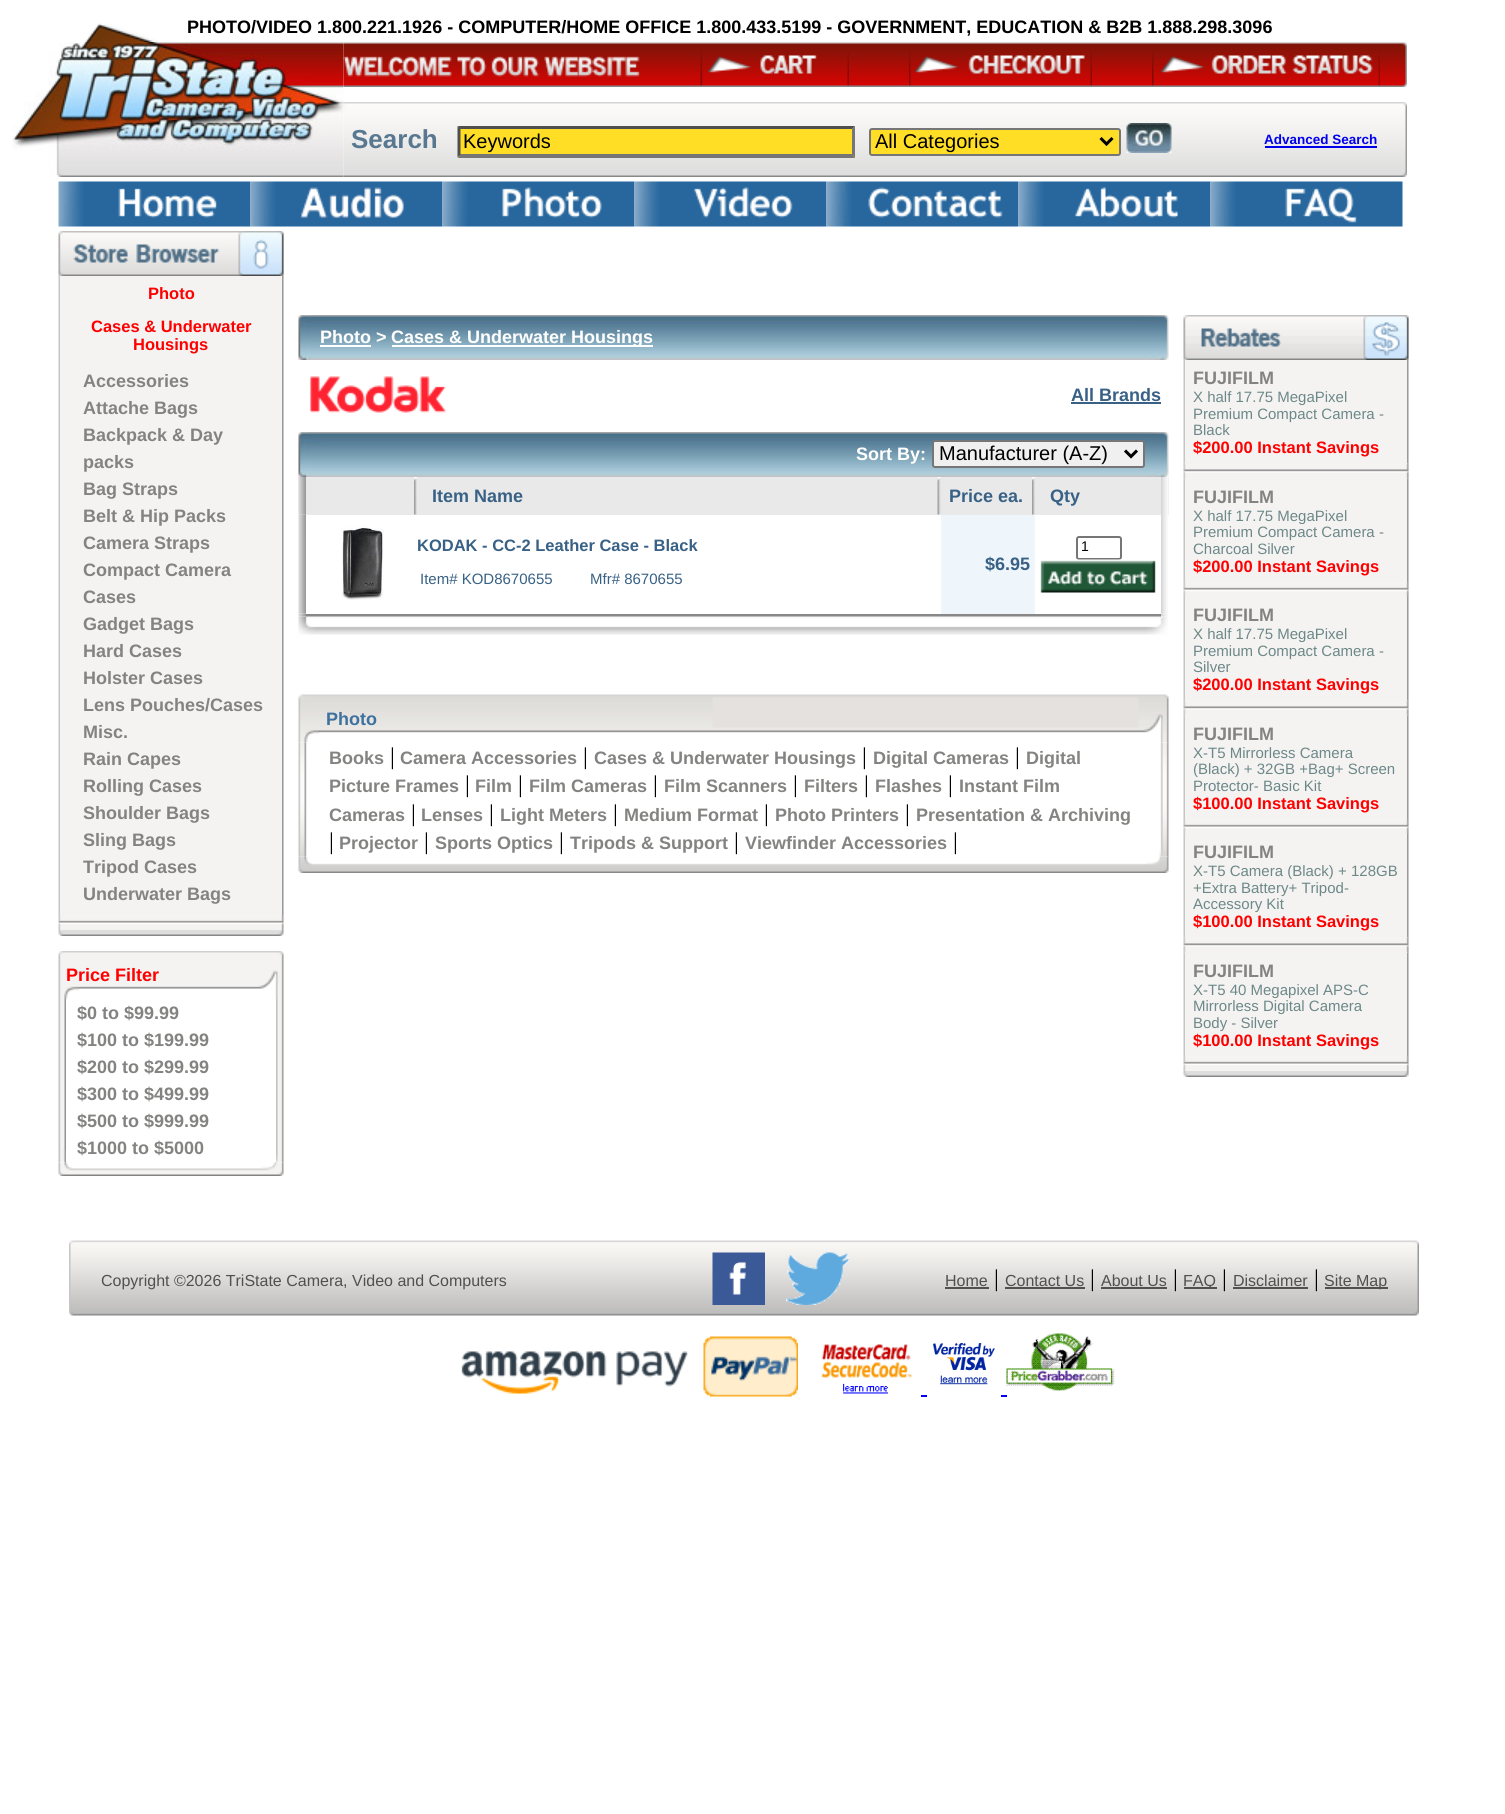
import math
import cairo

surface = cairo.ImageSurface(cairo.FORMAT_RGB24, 1505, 1814)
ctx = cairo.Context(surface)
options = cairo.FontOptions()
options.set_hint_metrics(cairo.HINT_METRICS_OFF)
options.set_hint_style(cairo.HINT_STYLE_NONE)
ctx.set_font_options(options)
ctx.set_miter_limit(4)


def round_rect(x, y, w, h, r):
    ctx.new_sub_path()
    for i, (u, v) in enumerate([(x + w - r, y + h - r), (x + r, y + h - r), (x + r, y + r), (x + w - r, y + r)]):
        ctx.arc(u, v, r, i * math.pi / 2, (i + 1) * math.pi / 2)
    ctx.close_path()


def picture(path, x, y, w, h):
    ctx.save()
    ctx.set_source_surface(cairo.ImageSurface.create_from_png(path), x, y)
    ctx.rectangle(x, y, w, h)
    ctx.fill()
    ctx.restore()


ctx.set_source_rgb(1, 1, 1)
ctx.paint()
picture("img1.png", 85, 23, 73, 19)
ctx.select_font_face("Liberation Sans", cairo.FONT_SLANT_NORMAL, cairo.FONT_WEIGHT_BOLD)
ctx.set_font_size(18)
ctx.set_source_rgb(0, 0, 0)
ctx.move_to(187, 33)
ctx.show_text("PHOTO/VIDEO 1.800.221.1926 - COMPUTER/HOME OFFICE 1.800.433.5199 - GOVERNMENT, EDUCATION & B2B 1.888.298.3096")
picture("img2.png", 12, 42, 332, 135)
picture("img3.png", 343, 42, 1064, 45)
picture("img4.png", 700, 51, 149, 35)
picture("img5.png", 909, 51, 183, 35)
picture("img6.png", 1152, 51, 228, 35)
ctx.set_source_rgb(0.976, 0.976, 0.973)
ctx.rectangle(343, 87, 1, 1)
ctx.fill()
picture("img7.png", 343, 102, 1064, 75)
ctx.set_font_size(26)
ctx.set_source_rgb(0.345, 0.471, 0.569)
ctx.move_to(351, 148)
ctx.show_text("Search")
ctx.set_source_rgb(1, 0.871, 0.145)
ctx.rectangle(458, 126, 397, 32)
ctx.fill()
ctx.set_source_rgb(0.31, 0.31, 0.31)
ctx.new_path()
ctx.move_to(458, 126)
ctx.line_to(855, 126)
ctx.line_to(852, 129)
ctx.line_to(460, 129)
ctx.close_path()
ctx.fill()
ctx.set_source_rgb(0.463, 0.463, 0.463)
ctx.new_path()
ctx.move_to(855, 126)
ctx.line_to(855, 157.5)
ctx.line_to(852, 154.5)
ctx.line_to(852, 129)
ctx.close_path()
ctx.fill()
ctx.new_path()
ctx.move_to(855, 158)
ctx.line_to(458, 158)
ctx.line_to(460, 154)
ctx.line_to(852, 154)
ctx.close_path()
ctx.fill()
ctx.set_source_rgb(0.31, 0.31, 0.31)
ctx.new_path()
ctx.move_to(457.5, 157.5)
ctx.line_to(457.5, 126)
ctx.line_to(460.5, 129)
ctx.line_to(460.5, 154.5)
ctx.close_path()
ctx.fill()
ctx.select_font_face("Liberation Sans")
ctx.set_font_size(20)
ctx.set_source_rgb(0, 0, 0)
ctx.move_to(463, 148)
ctx.show_text("Keywords")
ctx.set_source_rgb(1, 0.871, 0.145)
round_rect(870, 129, 250, 26, 2)
ctx.fill_preserve()
ctx.set_source_rgb(0.463, 0.463, 0.463)
ctx.stroke()
ctx.new_path()
ctx.move_to(1100.5, 138)
ctx.line_to(1106.5, 144)
ctx.line_to(1112.5, 138)
ctx.set_source_rgb(0, 0, 0)
ctx.set_line_width(3)
ctx.stroke()
ctx.move_to(875, 148)
ctx.show_text("All Categories")
picture("img8.png", 1126, 123, 46, 30)
ctx.select_font_face("Liberation Sans", cairo.FONT_SLANT_NORMAL, cairo.FONT_WEIGHT_BOLD)
ctx.set_font_size(13.5)
ctx.set_source_rgb(0, 0, 0.933)
ctx.move_to(1264, 144)
ctx.show_text("Advanced Search")
ctx.rectangle(1265, 146, 112, 2)
ctx.fill()
picture("img9.png", 58, 181, 193, 46)
picture("img10.png", 250, 181, 193, 46)
picture("img11.png", 442, 181, 193, 46)
picture("img12.png", 634, 181, 193, 46)
picture("img13.png", 826, 181, 193, 46)
picture("img14.png", 1018, 181, 193, 46)
picture("img15.png", 1210, 181, 193, 46)
ctx.set_source_rgb(0.957, 0.953, 0.949)
ctx.rectangle(60, 231, 224, 684)
ctx.fill()
picture("img16.png", 58, 231, 226, 45)
picture("img17.png", 58, 276, 2, 33)
ctx.set_font_size(16.5)
ctx.set_source_rgb(1, 0, 0)
ctx.move_to(148, 299)
ctx.show_text("Photo")
picture("img18.png", 282, 276, 2, 33)
picture("img19.png", 58, 309, 2, 51)
ctx.move_to(91, 332)
ctx.show_text("Cases & Underwater")
ctx.move_to(133, 350)
ctx.show_text("Housings")
picture("img20.png", 282, 309, 2, 51)
picture("img21.png", 58, 360, 2, 555)
ctx.set_font_size(18)
ctx.set_source_rgb(0.514, 0.514, 0.51)
ctx.move_to(83, 387)
ctx.show_text("Accessories")
ctx.move_to(83, 414)
ctx.show_text("Attache Bags")
ctx.move_to(83, 441)
ctx.show_text("Backpack & Day")
ctx.move_to(83, 468)
ctx.show_text("packs")
ctx.move_to(83, 495)
ctx.show_text("Bag Straps")
ctx.move_to(83, 522)
ctx.show_text("Belt & Hip Packs")
ctx.move_to(83, 549)
ctx.show_text("Camera Straps")
ctx.move_to(83, 576)
ctx.show_text("Compact Camera")
ctx.move_to(83, 603)
ctx.show_text("Cases")
ctx.move_to(83, 630)
ctx.show_text("Gadget Bags")
ctx.move_to(83, 657)
ctx.show_text("Hard Cases")
ctx.move_to(83, 684)
ctx.show_text("Holster Cases")
ctx.move_to(83, 711)
ctx.show_text("Lens Pouches/Cases")
ctx.move_to(83, 738)
ctx.show_text("Misc.")
ctx.move_to(83, 765)
ctx.show_text("Rain Capes")
ctx.move_to(83, 792)
ctx.show_text("Rolling Cases")
ctx.move_to(83, 819)
ctx.show_text("Shoulder Bags")
ctx.move_to(83, 846)
ctx.show_text("Sling Bags")
ctx.move_to(83, 873)
ctx.show_text("Tripod Cases")
ctx.move_to(83, 900)
ctx.show_text("Underwater Bags")
picture("img22.png", 282, 360, 2, 555)
picture("img23.png", 58, 915, 226, 15)
picture("img24.png", 58, 930, 226, 6)
picture("img25.png", 58, 951, 226, 48)
ctx.set_source_rgb(1, 0, 0)
ctx.move_to(66, 981)
ctx.show_text("Price Filter")
picture("img26.png", 58, 999, 8, 164)
ctx.set_source_rgb(0.514, 0.514, 0.51)
ctx.move_to(77, 1019)
ctx.show_text("$0 to $99.99")
ctx.move_to(77, 1046)
ctx.show_text("$100 to $199.99")
ctx.move_to(77, 1073)
ctx.show_text("$200 to $299.99")
ctx.move_to(77, 1100)
ctx.show_text("$300 to $499.99")
ctx.move_to(77, 1127)
ctx.show_text("$500 to $999.99")
ctx.move_to(77, 1154)
ctx.show_text("$1000 to $5000")
picture("img27.png", 276, 999, 8, 164)
picture("img28.png", 58, 1162, 226, 14)
picture("img29.png", 298, 315, 871, 45)
ctx.set_source_rgb(1, 1, 1)
ctx.move_to(320, 343)
ctx.show_text("Photo >")
ctx.rectangle(320, 345, 51, 2)
ctx.fill()
ctx.rectangle(392, 345, 261, 2)
ctx.fill()
ctx.move_to(391, 343)
ctx.show_text("Cases & Underwater Housings")
picture("img30.png", 310, 376, 136, 37)
ctx.set_source_rgb(0.22, 0.38, 0.522)
ctx.move_to(1071, 401)
ctx.show_text("All Brands")
ctx.rectangle(1071, 402, 90, 2)
ctx.fill()
picture("img29.png", 298, 432, 871, 45)
ctx.set_source_rgb(1, 1, 1)
ctx.move_to(856, 460)
ctx.show_text("Sort By:")
ctx.set_source_rgb(0.941, 0.941, 0.941)
round_rect(933, 441, 211, 26, 2)
ctx.fill_preserve()
ctx.set_source_rgb(0.463, 0.463, 0.463)
ctx.set_line_width(2)
ctx.stroke()
ctx.new_path()
ctx.move_to(1125, 450.5)
ctx.line_to(1131, 456.5)
ctx.line_to(1137, 450.5)
ctx.set_source_rgb(0, 0, 0)
ctx.set_line_width(3)
ctx.stroke()
ctx.select_font_face("Liberation Sans")
ctx.set_font_size(20)
ctx.move_to(939, 460)
ctx.show_text("Manufacturer (A-Z)")
ctx.set_source_rgb(0.914, 0.914, 0.914)
ctx.rectangle(299, 477, 870, 38)
ctx.fill()
picture("img31.png", 298, 477, 8, 38)
picture("img32.png", 414, 477, 3, 38)
ctx.select_font_face("Liberation Sans", cairo.FONT_SLANT_NORMAL, cairo.FONT_WEIGHT_BOLD)
ctx.set_font_size(18)
ctx.set_source_rgb(0.22, 0.38, 0.522)
ctx.move_to(432, 502)
ctx.show_text("Item Name")
picture("img33.png", 937, 477, 4, 38)
ctx.move_to(949, 502)
ctx.show_text("Price ea.")
picture("img32.png", 1032, 477, 3, 38)
ctx.move_to(1050, 502)
ctx.show_text("Qty")
picture("img34.png", 1161, 477, 8, 38)
picture("img35.png", 298, 514, 8, 100)
picture("img36.png", 341, 525, 43, 75)
ctx.set_font_size(16.5)
ctx.move_to(417, 551)
ctx.show_text("KODAK - CC-2 Leather Case - Black")
ctx.select_font_face("Liberation Sans")
ctx.set_font_size(15)
ctx.move_to(420, 584)
ctx.show_text("Item# KOD8670655")
ctx.move_to(590, 584)
ctx.show_text("Mfr# 8670655")
round_rect(1077, 537, 44, 22, 2)
ctx.set_source_rgb(0.463, 0.463, 0.463)
ctx.set_line_width(2)
ctx.stroke()
ctx.set_font_size(14)
ctx.set_source_rgb(0, 0, 0)
ctx.move_to(1081, 551)
ctx.show_text("1")
picture("img37.png", 1040, 559, 116, 34)
picture("img38.png", 1161, 514, 7, 100)
ctx.set_source_rgb(0.933, 0.961, 0.984)
ctx.rectangle(941, 515, 94, 99)
ctx.fill()
ctx.select_font_face("Liberation Sans", cairo.FONT_SLANT_NORMAL, cairo.FONT_WEIGHT_BOLD)
ctx.set_font_size(18)
ctx.set_source_rgb(0.22, 0.38, 0.522)
ctx.move_to(985, 570)
ctx.show_text("$6.95")
picture("img39.png", 298, 613, 8, 2)
ctx.set_source_rgb(0.533, 0.533, 0.533)
ctx.rectangle(306, 614, 855, 3)
ctx.fill()
picture("img40.png", 1161, 613, 7, 2)
picture("img41.png", 298, 615, 8, 2)
picture("img42.png", 1161, 615, 7, 2)
picture("img43.png", 298, 616, 870, 19)
picture("img44.png", 298, 694, 871, 49)
ctx.set_source_rgb(0.243, 0.443, 0.616)
ctx.move_to(326, 725)
ctx.show_text("Photo")
picture("img45.png", 298, 742, 10, 115)
ctx.set_source_rgb(0.514, 0.514, 0.51)
ctx.move_to(329, 764)
ctx.show_text("Books")
ctx.select_font_face("Liberation Serif")
ctx.set_font_size(24)
ctx.set_source_rgb(0, 0, 0)
ctx.move_to(390, 764)
ctx.show_text("|")
ctx.select_font_face("Liberation Sans", cairo.FONT_SLANT_NORMAL, cairo.FONT_WEIGHT_BOLD)
ctx.set_font_size(18)
ctx.set_source_rgb(0.514, 0.514, 0.51)
ctx.move_to(400, 764)
ctx.show_text("Camera Accessories")
ctx.select_font_face("Liberation Serif")
ctx.set_font_size(24)
ctx.set_source_rgb(0, 0, 0)
ctx.move_to(583, 764)
ctx.show_text("|")
ctx.select_font_face("Liberation Sans", cairo.FONT_SLANT_NORMAL, cairo.FONT_WEIGHT_BOLD)
ctx.set_font_size(18)
ctx.set_source_rgb(0.514, 0.514, 0.51)
ctx.move_to(594, 764)
ctx.show_text("Cases & Underwater Housings")
ctx.select_font_face("Liberation Serif")
ctx.set_font_size(24)
ctx.set_source_rgb(0, 0, 0)
ctx.move_to(862, 764)
ctx.show_text("|")
ctx.select_font_face("Liberation Sans", cairo.FONT_SLANT_NORMAL, cairo.FONT_WEIGHT_BOLD)
ctx.set_font_size(18)
ctx.set_source_rgb(0.514, 0.514, 0.51)
ctx.move_to(873, 764)
ctx.show_text("Digital Cameras")
ctx.select_font_face("Liberation Serif")
ctx.set_font_size(24)
ctx.set_source_rgb(0, 0, 0)
ctx.move_to(1015, 764)
ctx.show_text("|")
ctx.select_font_face("Liberation Sans", cairo.FONT_SLANT_NORMAL, cairo.FONT_WEIGHT_BOLD)
ctx.set_font_size(18)
ctx.set_source_rgb(0.514, 0.514, 0.51)
ctx.move_to(1026, 764)
ctx.show_text("Digital")
ctx.move_to(329, 792)
ctx.show_text("Picture Frames")
ctx.select_font_face("Liberation Serif")
ctx.set_font_size(24)
ctx.set_source_rgb(0, 0, 0)
ctx.move_to(465, 792)
ctx.show_text("|")
ctx.select_font_face("Liberation Sans", cairo.FONT_SLANT_NORMAL, cairo.FONT_WEIGHT_BOLD)
ctx.set_font_size(18)
ctx.set_source_rgb(0.514, 0.514, 0.51)
ctx.move_to(475, 792)
ctx.show_text("Film")
ctx.select_font_face("Liberation Serif")
ctx.set_font_size(24)
ctx.set_source_rgb(0, 0, 0)
ctx.move_to(518, 792)
ctx.show_text("|")
ctx.select_font_face("Liberation Sans", cairo.FONT_SLANT_NORMAL, cairo.FONT_WEIGHT_BOLD)
ctx.set_font_size(18)
ctx.set_source_rgb(0.514, 0.514, 0.51)
ctx.move_to(529, 792)
ctx.show_text("Film Cameras")
ctx.select_font_face("Liberation Serif")
ctx.set_font_size(24)
ctx.set_source_rgb(0, 0, 0)
ctx.move_to(653, 792)
ctx.show_text("|")
ctx.select_font_face("Liberation Sans", cairo.FONT_SLANT_NORMAL, cairo.FONT_WEIGHT_BOLD)
ctx.set_font_size(18)
ctx.set_source_rgb(0.514, 0.514, 0.51)
ctx.move_to(664, 792)
ctx.show_text("Film Scanners")
ctx.select_font_face("Liberation Serif")
ctx.set_font_size(24)
ctx.set_source_rgb(0, 0, 0)
ctx.move_to(793, 792)
ctx.show_text("|")
ctx.select_font_face("Liberation Sans", cairo.FONT_SLANT_NORMAL, cairo.FONT_WEIGHT_BOLD)
ctx.set_font_size(18)
ctx.set_source_rgb(0.514, 0.514, 0.51)
ctx.move_to(804, 792)
ctx.show_text("Filters")
ctx.select_font_face("Liberation Serif")
ctx.set_font_size(24)
ctx.set_source_rgb(0, 0, 0)
ctx.move_to(864, 792)
ctx.show_text("|")
ctx.select_font_face("Liberation Sans", cairo.FONT_SLANT_NORMAL, cairo.FONT_WEIGHT_BOLD)
ctx.set_font_size(18)
ctx.set_source_rgb(0.514, 0.514, 0.51)
ctx.move_to(875, 792)
ctx.show_text("Flashes")
ctx.select_font_face("Liberation Serif")
ctx.set_font_size(24)
ctx.set_source_rgb(0, 0, 0)
ctx.move_to(948, 792)
ctx.show_text("|")
ctx.select_font_face("Liberation Sans", cairo.FONT_SLANT_NORMAL, cairo.FONT_WEIGHT_BOLD)
ctx.set_font_size(18)
ctx.set_source_rgb(0.514, 0.514, 0.51)
ctx.move_to(959, 792)
ctx.show_text("Instant Film")
ctx.move_to(329, 821)
ctx.show_text("Cameras")
ctx.select_font_face("Liberation Serif")
ctx.set_font_size(24)
ctx.set_source_rgb(0, 0, 0)
ctx.move_to(411, 821)
ctx.show_text("|")
ctx.select_font_face("Liberation Sans", cairo.FONT_SLANT_NORMAL, cairo.FONT_WEIGHT_BOLD)
ctx.set_font_size(18)
ctx.set_source_rgb(0.514, 0.514, 0.51)
ctx.move_to(421, 821)
ctx.show_text("Lenses")
ctx.select_font_face("Liberation Serif")
ctx.set_font_size(24)
ctx.set_source_rgb(0, 0, 0)
ctx.move_to(489, 821)
ctx.show_text("|")
ctx.select_font_face("Liberation Sans", cairo.FONT_SLANT_NORMAL, cairo.FONT_WEIGHT_BOLD)
ctx.set_font_size(18)
ctx.set_source_rgb(0.514, 0.514, 0.51)
ctx.move_to(500, 821)
ctx.show_text("Light Meters")
ctx.select_font_face("Liberation Serif")
ctx.set_font_size(24)
ctx.set_source_rgb(0, 0, 0)
ctx.move_to(613, 821)
ctx.show_text("|")
ctx.select_font_face("Liberation Sans", cairo.FONT_SLANT_NORMAL, cairo.FONT_WEIGHT_BOLD)
ctx.set_font_size(18)
ctx.set_source_rgb(0.514, 0.514, 0.51)
ctx.move_to(624, 821)
ctx.show_text("Medium Format")
ctx.select_font_face("Liberation Serif")
ctx.set_font_size(24)
ctx.set_source_rgb(0, 0, 0)
ctx.move_to(764, 821)
ctx.show_text("|")
ctx.select_font_face("Liberation Sans", cairo.FONT_SLANT_NORMAL, cairo.FONT_WEIGHT_BOLD)
ctx.set_font_size(18)
ctx.set_source_rgb(0.514, 0.514, 0.51)
ctx.move_to(775, 821)
ctx.show_text("Photo Printers")
ctx.select_font_face("Liberation Serif")
ctx.set_font_size(24)
ctx.set_source_rgb(0, 0, 0)
ctx.move_to(905, 821)
ctx.show_text("|")
ctx.select_font_face("Liberation Sans", cairo.FONT_SLANT_NORMAL, cairo.FONT_WEIGHT_BOLD)
ctx.set_font_size(18)
ctx.set_source_rgb(0.514, 0.514, 0.51)
ctx.move_to(916, 821)
ctx.show_text("Presentation & Archiving")
ctx.select_font_face("Liberation Serif")
ctx.set_font_size(24)
ctx.set_source_rgb(0, 0, 0)
ctx.move_to(329, 849)
ctx.show_text("|")
ctx.select_font_face("Liberation Sans", cairo.FONT_SLANT_NORMAL, cairo.FONT_WEIGHT_BOLD)
ctx.set_font_size(18)
ctx.set_source_rgb(0.514, 0.514, 0.51)
ctx.move_to(339, 849)
ctx.show_text("Projector")
ctx.select_font_face("Liberation Serif")
ctx.set_font_size(24)
ctx.set_source_rgb(0, 0, 0)
ctx.move_to(424, 849)
ctx.show_text("|")
ctx.select_font_face("Liberation Sans", cairo.FONT_SLANT_NORMAL, cairo.FONT_WEIGHT_BOLD)
ctx.set_font_size(18)
ctx.set_source_rgb(0.514, 0.514, 0.51)
ctx.move_to(435, 849)
ctx.show_text("Sports Optics")
ctx.select_font_face("Liberation Serif")
ctx.set_font_size(24)
ctx.set_source_rgb(0, 0, 0)
ctx.move_to(559, 849)
ctx.show_text("|")
ctx.select_font_face("Liberation Sans", cairo.FONT_SLANT_NORMAL, cairo.FONT_WEIGHT_BOLD)
ctx.set_font_size(18)
ctx.set_source_rgb(0.514, 0.514, 0.51)
ctx.move_to(570, 849)
ctx.show_text("Tripods & Support")
ctx.select_font_face("Liberation Serif")
ctx.set_font_size(24)
ctx.set_source_rgb(0, 0, 0)
ctx.move_to(734, 849)
ctx.show_text("|")
ctx.select_font_face("Liberation Sans", cairo.FONT_SLANT_NORMAL, cairo.FONT_WEIGHT_BOLD)
ctx.set_font_size(18)
ctx.set_source_rgb(0.514, 0.514, 0.51)
ctx.move_to(745, 849)
ctx.show_text("Viewfinder Accessories")
ctx.select_font_face("Liberation Serif")
ctx.set_font_size(24)
ctx.set_source_rgb(0, 0, 0)
ctx.move_to(953, 849)
ctx.show_text("|")
picture("img46.png", 1159, 742, 10, 115)
picture("img47.png", 298, 856, 871, 17)
ctx.set_source_rgb(0.957, 0.953, 0.949)
ctx.rectangle(1184, 315, 225, 762)
ctx.fill()
picture("img48.png", 1183, 315, 226, 45)
picture("img49.png", 1183, 360, 2, 104)
ctx.select_font_face("Liberation Sans", cairo.FONT_SLANT_NORMAL, cairo.FONT_WEIGHT_BOLD)
ctx.set_font_size(18)
ctx.set_source_rgb(0.514, 0.514, 0.51)
ctx.move_to(1193, 384)
ctx.show_text("FUJIFILM")
ctx.select_font_face("Liberation Sans")
ctx.set_font_size(15)
ctx.set_source_rgb(0.427, 0.533, 0.533)
ctx.move_to(1193, 402)
ctx.show_text("X half 17.75 MegaPixel")
ctx.move_to(1193, 419)
ctx.show_text("Premium Compact Camera -")
ctx.move_to(1193, 435)
ctx.show_text("Black")
ctx.select_font_face("Liberation Sans", cairo.FONT_SLANT_NORMAL, cairo.FONT_WEIGHT_BOLD)
ctx.set_font_size(16.5)
ctx.set_source_rgb(1, 0, 0)
ctx.move_to(1193, 453)
ctx.show_text("$200.00 Instant Savings")
picture("img50.png", 1407, 360, 2, 104)
picture("img52.png", 1183, 478, 2, 104)
picture("img53.png", 1407, 478, 2, 104)
picture("img51.png", 1183, 463, 226, 16)
ctx.set_font_size(18)
ctx.set_source_rgb(0.514, 0.514, 0.51)
ctx.move_to(1193, 503)
ctx.show_text("FUJIFILM")
ctx.select_font_face("Liberation Sans")
ctx.set_font_size(15)
ctx.set_source_rgb(0.427, 0.533, 0.533)
ctx.move_to(1193, 521)
ctx.show_text("X half 17.75 MegaPixel")
ctx.move_to(1193, 537)
ctx.show_text("Premium Compact Camera -")
ctx.move_to(1193, 554)
ctx.show_text("Charcoal Silver")
ctx.select_font_face("Liberation Sans", cairo.FONT_SLANT_NORMAL, cairo.FONT_WEIGHT_BOLD)
ctx.set_font_size(16.5)
ctx.set_source_rgb(1, 0, 0)
ctx.move_to(1193, 572)
ctx.show_text("$200.00 Instant Savings")
picture("img54.png", 1183, 582, 226, 15)
picture("img49.png", 1183, 597, 2, 104)
ctx.set_font_size(18)
ctx.set_source_rgb(0.514, 0.514, 0.51)
ctx.move_to(1193, 621)
ctx.show_text("FUJIFILM")
ctx.select_font_face("Liberation Sans")
ctx.set_font_size(15)
ctx.set_source_rgb(0.427, 0.533, 0.533)
ctx.move_to(1193, 639)
ctx.show_text("X half 17.75 MegaPixel")
ctx.move_to(1193, 656)
ctx.show_text("Premium Compact Camera -")
ctx.move_to(1193, 672)
ctx.show_text("Silver")
ctx.select_font_face("Liberation Sans", cairo.FONT_SLANT_NORMAL, cairo.FONT_WEIGHT_BOLD)
ctx.set_font_size(16.5)
ctx.set_source_rgb(1, 0, 0)
ctx.move_to(1193, 690)
ctx.show_text("$200.00 Instant Savings")
picture("img50.png", 1407, 597, 2, 104)
picture("img52.png", 1183, 715, 2, 104)
picture("img53.png", 1407, 715, 2, 104)
picture("img51.png", 1183, 700, 226, 16)
ctx.set_font_size(18)
ctx.set_source_rgb(0.514, 0.514, 0.51)
ctx.move_to(1193, 740)
ctx.show_text("FUJIFILM")
ctx.select_font_face("Liberation Sans")
ctx.set_font_size(15)
ctx.set_source_rgb(0.427, 0.533, 0.533)
ctx.move_to(1193, 758)
ctx.show_text("X-T5 Mirrorless Camera")
ctx.move_to(1193, 774)
ctx.show_text("(Black) + 32GB +Bag+ Screen")
ctx.move_to(1193, 791)
ctx.show_text("Protector- Basic Kit")
ctx.select_font_face("Liberation Sans", cairo.FONT_SLANT_NORMAL, cairo.FONT_WEIGHT_BOLD)
ctx.set_font_size(16.5)
ctx.set_source_rgb(1, 0, 0)
ctx.move_to(1193, 809)
ctx.show_text("$100.00 Instant Savings")
picture("img54.png", 1183, 819, 226, 15)
picture("img49.png", 1183, 834, 2, 104)
ctx.set_font_size(18)
ctx.set_source_rgb(0.514, 0.514, 0.51)
ctx.move_to(1193, 858)
ctx.show_text("FUJIFILM")
ctx.select_font_face("Liberation Sans")
ctx.set_font_size(15)
ctx.set_source_rgb(0.427, 0.533, 0.533)
ctx.move_to(1193, 876)
ctx.show_text("X-T5 Camera (Black) + 128GB")
ctx.move_to(1193, 893)
ctx.show_text("+Extra Battery+ Tripod-")
ctx.move_to(1193, 909)
ctx.show_text("Accessory Kit")
ctx.select_font_face("Liberation Sans", cairo.FONT_SLANT_NORMAL, cairo.FONT_WEIGHT_BOLD)
ctx.set_font_size(16.5)
ctx.set_source_rgb(1, 0, 0)
ctx.move_to(1193, 927)
ctx.show_text("$100.00 Instant Savings")
picture("img50.png", 1407, 834, 2, 104)
picture("img52.png", 1183, 952, 2, 104)
picture("img53.png", 1407, 952, 2, 104)
picture("img51.png", 1183, 937, 226, 16)
ctx.set_font_size(18)
ctx.set_source_rgb(0.514, 0.514, 0.51)
ctx.move_to(1193, 977)
ctx.show_text("FUJIFILM")
ctx.select_font_face("Liberation Sans")
ctx.set_font_size(15)
ctx.set_source_rgb(0.427, 0.533, 0.533)
ctx.move_to(1193, 995)
ctx.show_text("X-T5 40 Megapixel APS-C")
ctx.move_to(1193, 1011)
ctx.show_text("Mirrorless Digital Camera")
ctx.move_to(1193, 1028)
ctx.show_text("Body - Silver")
ctx.select_font_face("Liberation Sans", cairo.FONT_SLANT_NORMAL, cairo.FONT_WEIGHT_BOLD)
ctx.set_font_size(16.5)
ctx.set_source_rgb(1, 0, 0)
ctx.move_to(1193, 1046)
ctx.show_text("$100.00 Instant Savings")
picture("img54.png", 1183, 1056, 226, 15)
picture("img55.png", 1183, 1071, 226, 6)
picture("img56.png", 69, 1240, 1350, 76)
ctx.select_font_face("Liberation Sans")
ctx.set_font_size(16)
ctx.set_source_rgb(0.314, 0.314, 0.314)
ctx.move_to(101, 1286)
ctx.show_text("Copyright ©2026 TriState Camera, Video and Computers")
picture("img57.png", 712, 1252, 53, 53)
picture("img58.png", 786, 1252, 63, 53)
ctx.move_to(945, 1286)
ctx.show_text("Home")
ctx.rectangle(945, 1287, 44, 2)
ctx.fill()
ctx.select_font_face("Liberation Serif")
ctx.set_font_size(24)
ctx.set_source_rgb(0, 0, 0)
ctx.move_to(994, 1286)
ctx.show_text("|")
ctx.select_font_face("Liberation Sans")
ctx.set_font_size(16)
ctx.set_source_rgb(0.314, 0.314, 0.314)
ctx.move_to(1005, 1286)
ctx.show_text("Contact Us")
ctx.rectangle(1005, 1287, 80, 2)
ctx.fill()
ctx.select_font_face("Liberation Serif")
ctx.set_font_size(24)
ctx.set_source_rgb(0, 0, 0)
ctx.move_to(1090, 1286)
ctx.show_text("|")
ctx.select_font_face("Liberation Sans")
ctx.set_font_size(16)
ctx.set_source_rgb(0.314, 0.314, 0.314)
ctx.move_to(1101, 1286)
ctx.show_text("About Us")
ctx.rectangle(1101, 1287, 66, 2)
ctx.fill()
ctx.select_font_face("Liberation Serif")
ctx.set_font_size(24)
ctx.set_source_rgb(0, 0, 0)
ctx.move_to(1173, 1286)
ctx.show_text("|")
ctx.set_source_rgb(0.314, 0.314, 0.314)
ctx.rectangle(1184, 1287, 33, 2)
ctx.fill()
ctx.select_font_face("Liberation Sans")
ctx.set_font_size(16)
ctx.move_to(1183, 1286)
ctx.show_text("FAQ")
ctx.select_font_face("Liberation Serif")
ctx.set_font_size(24)
ctx.set_source_rgb(0, 0, 0)
ctx.move_to(1222, 1286)
ctx.show_text("|")
ctx.select_font_face("Liberation Sans")
ctx.set_font_size(16)
ctx.set_source_rgb(0.314, 0.314, 0.314)
ctx.move_to(1233, 1286)
ctx.show_text("Disclaimer")
ctx.rectangle(1233, 1287, 75, 2)
ctx.fill()
ctx.select_font_face("Liberation Serif")
ctx.set_font_size(24)
ctx.set_source_rgb(0, 0, 0)
ctx.move_to(1314, 1286)
ctx.show_text("|")
ctx.set_source_rgb(0.314, 0.314, 0.314)
ctx.rectangle(1325, 1287, 63, 2)
ctx.fill()
ctx.select_font_face("Liberation Sans")
ctx.set_font_size(16)
ctx.move_to(1324, 1286)
ctx.show_text("Site Map")
picture("img59.png", 461, 1351, 227, 43)
picture("img60.png", 703, 1336, 95, 61)
picture("img61.png", 821, 1344, 91, 50)
picture("img62.png", 933, 1343, 62, 42)
picture("img63.png", 1006, 1333, 109, 58)
ctx.set_source_rgb(0, 0, 0.933)
ctx.rectangle(921, 1395, 6, 2)
ctx.fill()
ctx.rectangle(1001, 1395, 6, 2)
ctx.fill()
surface.write_to_png("page.png")
